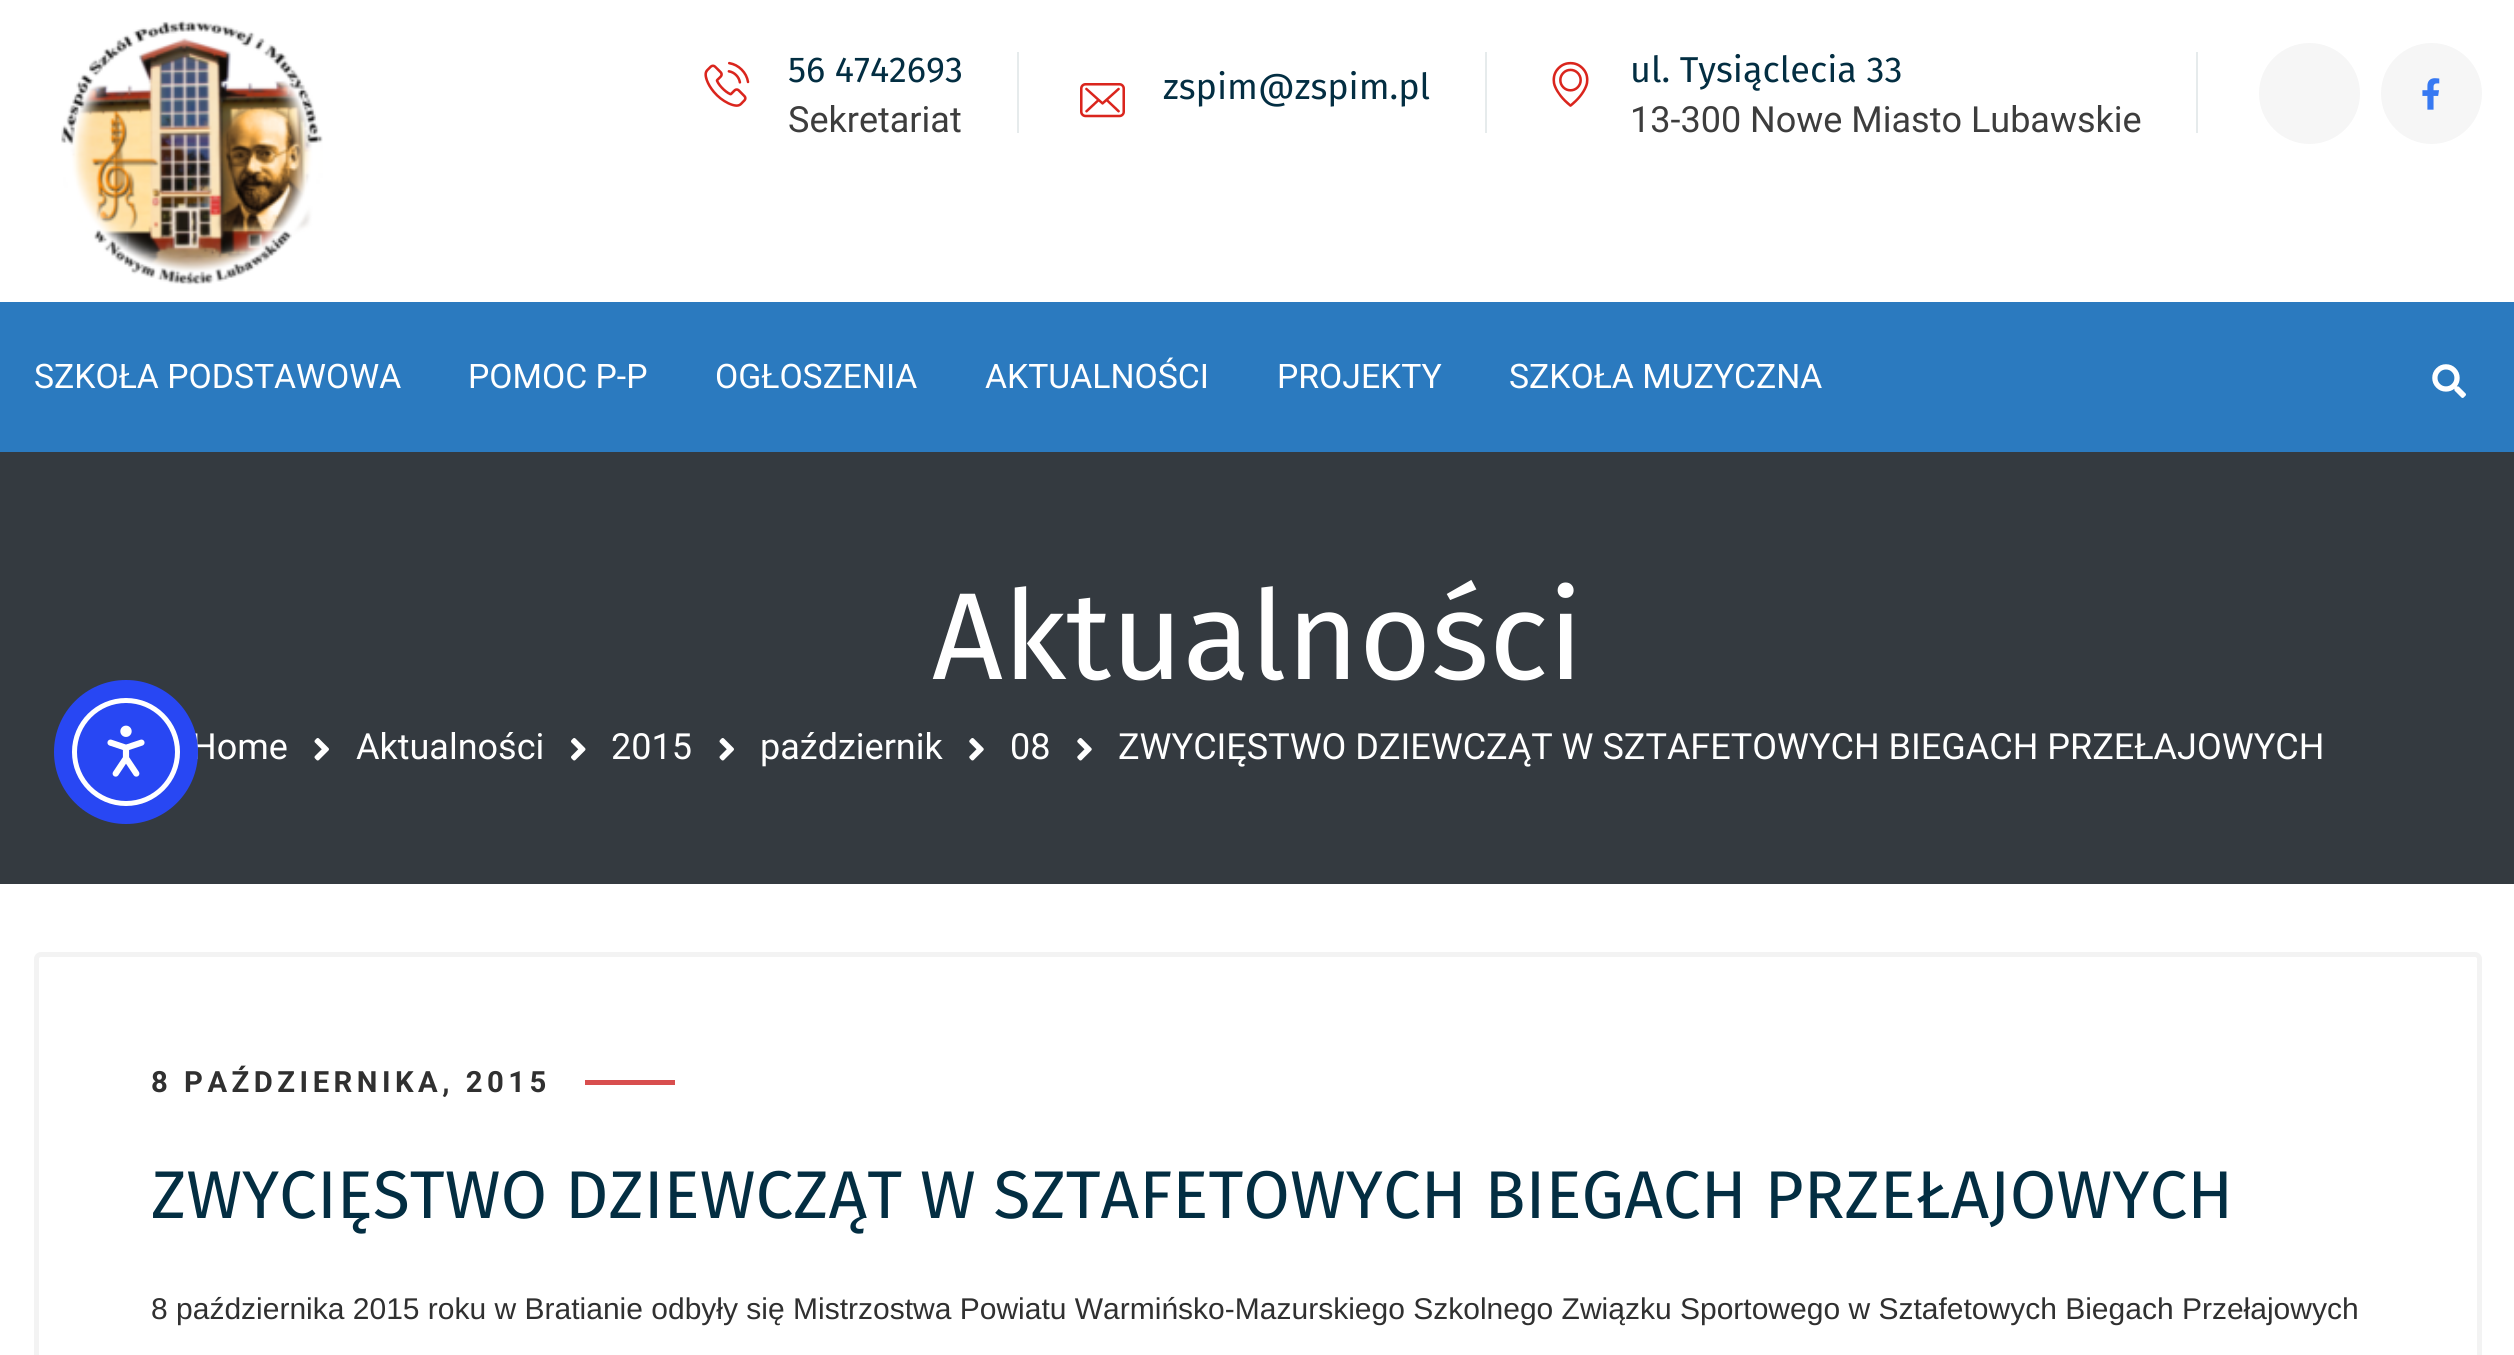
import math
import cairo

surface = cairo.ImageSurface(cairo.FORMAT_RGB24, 2514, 1355)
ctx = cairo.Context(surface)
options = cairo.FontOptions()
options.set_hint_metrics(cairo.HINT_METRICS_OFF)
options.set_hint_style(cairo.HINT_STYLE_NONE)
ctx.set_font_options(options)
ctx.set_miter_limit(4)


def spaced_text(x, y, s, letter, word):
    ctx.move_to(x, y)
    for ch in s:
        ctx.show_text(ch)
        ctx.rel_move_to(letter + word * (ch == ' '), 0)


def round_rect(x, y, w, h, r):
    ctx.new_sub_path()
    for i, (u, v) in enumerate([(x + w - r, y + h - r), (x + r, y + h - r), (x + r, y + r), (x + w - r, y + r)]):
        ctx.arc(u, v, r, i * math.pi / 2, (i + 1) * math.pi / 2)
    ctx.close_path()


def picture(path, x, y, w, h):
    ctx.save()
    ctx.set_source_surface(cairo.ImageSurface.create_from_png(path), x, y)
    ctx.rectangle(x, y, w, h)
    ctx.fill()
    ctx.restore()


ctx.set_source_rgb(1, 1, 1)
ctx.paint()
picture("img1.png", 61, 20, 262, 265)
picture("img2.png", 704, 61, 46, 46)
ctx.select_font_face("Fira Sans")
ctx.set_font_size(36)
ctx.set_source_rgb(0.012, 0.18, 0.259)
ctx.move_to(788, 82)
ctx.show_text("56 4742693")
ctx.set_source_rgb(0.902, 0.918, 0.925)
ctx.rectangle(1017, 52, 2, 81)
ctx.fill()
ctx.select_font_face("Roboto")
ctx.set_source_rgb(0.239, 0.239, 0.239)
ctx.move_to(788, 132)
ctx.show_text("Sekretariat")
picture("img3.png", 1080, 83, 45, 35)
ctx.select_font_face("Fira Sans")
ctx.set_source_rgb(0.012, 0.18, 0.259)
ctx.move_to(1163, 99)
ctx.show_text("zspim@zspim.pl")
ctx.set_source_rgb(0.902, 0.918, 0.925)
ctx.rectangle(1485, 52, 2, 81)
ctx.fill()
picture("img4.png", 1552, 61, 37, 46)
ctx.set_source_rgb(0.012, 0.18, 0.259)
ctx.move_to(1630, 82)
ctx.show_text("ul. Tysiąclecia 33")
ctx.set_source_rgb(0.902, 0.918, 0.925)
ctx.rectangle(2196, 52, 2, 81)
ctx.fill()
ctx.select_font_face("Roboto")
ctx.set_source_rgb(0.239, 0.239, 0.239)
ctx.move_to(1630, 132)
ctx.show_text("13-300 Nowe Miasto Lubawskie")
ctx.set_source_rgb(0.961, 0.961, 0.961)
ctx.new_path()
ctx.arc(2309.5, 93.5, 50.5, 0, 2 * math.pi)
ctx.fill()
ctx.arc(2431.5, 93.5, 50.5, 0, 2 * math.pi)
ctx.fill()
picture("img5.png", 2422, 78, 18, 32)
ctx.set_source_rgb(0.169, 0.478, 0.749)
ctx.rectangle(0, 302, 2514, 150)
ctx.fill()
ctx.set_font_size(33.75)
ctx.set_source_rgb(1, 1, 1)
ctx.move_to(34, 388)
ctx.show_text("SZKOŁA PODSTAWOWA")
ctx.move_to(468, 388)
ctx.show_text("POMOC P-P")
ctx.move_to(715, 388)
ctx.show_text("OGŁOSZENIA")
ctx.move_to(985, 388)
ctx.show_text("AKTUALNOŚCI")
ctx.move_to(1277, 388)
ctx.show_text("PROJEKTY")
ctx.move_to(1509, 388)
ctx.show_text("SZKOŁA MUZYCZNA")
picture("img6.png", 2432, 364, 34, 34)
ctx.set_source_rgb(0.204, 0.227, 0.251)
ctx.rectangle(0, 452, 2514, 432)
ctx.fill()
ctx.select_font_face("Fira Sans")
ctx.set_font_size(123.75)
ctx.set_source_rgb(1, 1, 1)
ctx.move_to(932, 679)
ctx.show_text("Aktualności")
ctx.select_font_face("Roboto")
ctx.set_font_size(36)
ctx.move_to(191, 759)
ctx.show_text("Home")
picture("img7.png", 314, 738, 15, 23)
ctx.move_to(356, 759)
ctx.show_text("Aktualności")
picture("img8.png", 571, 738, 15, 23)
ctx.move_to(611, 759)
ctx.show_text("2015")
picture("img7.png", 719, 738, 15, 23)
ctx.move_to(760, 759)
ctx.show_text("październik")
picture("img9.png", 969, 738, 15, 23)
ctx.move_to(1010, 759)
ctx.show_text("08")
picture("img9.png", 1077, 738, 15, 23)
ctx.move_to(1118, 759)
ctx.show_text("ZWYCIĘSTWO DZIEWCZĄT W SZTAFETOWYCH BIEGACH PRZEŁAJOWYCH")
round_rect(36.5, 954.5, 2443, 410, 4.5)
ctx.set_source_rgb(0.953, 0.953, 0.953)
ctx.set_line_width(5)
ctx.stroke()
ctx.select_font_face("Roboto", cairo.FONT_SLANT_NORMAL, cairo.FONT_WEIGHT_BOLD)
ctx.set_font_size(29.25)
ctx.set_source_rgb(0.188, 0.188, 0.188)
spaced_text(151, 1092, "8 PAŹDZIERNIKA, 2015", 4.5, 0)
ctx.set_source_rgb(0.847, 0.306, 0.306)
ctx.rectangle(585, 1080, 90, 5)
ctx.fill()
ctx.select_font_face("Fira Sans")
ctx.set_font_size(67.5)
ctx.set_source_rgb(0.012, 0.18, 0.259)
ctx.move_to(151, 1218)
ctx.show_text("ZWYCIĘSTWO DZIEWCZĄT W SZTAFETOWYCH BIEGACH PRZEŁAJOWYCH")
ctx.select_font_face("Liberation Sans")
ctx.set_font_size(30)
ctx.set_source_rgb(0.188, 0.188, 0.188)
ctx.move_to(151, 1319)
ctx.show_text("8 października 2015 roku w Bratianie odbyły się Mistrzostwa Powiatu Warmińsko-Mazurskiego Szkolnego Związku Sportowego w Sztafetowych Biegach Przełajowych")
ctx.set_source_rgb(0.157, 0.278, 0.953)
ctx.new_path()
ctx.arc(126, 752, 72, 0, 2 * math.pi)
ctx.fill()
ctx.arc(126, 752, 51.5, 0, 2 * math.pi)
ctx.set_source_rgb(1, 1, 1)
ctx.stroke()
picture("img10.png", 107, 725, 38, 52)
surface.write_to_png("page.png")
